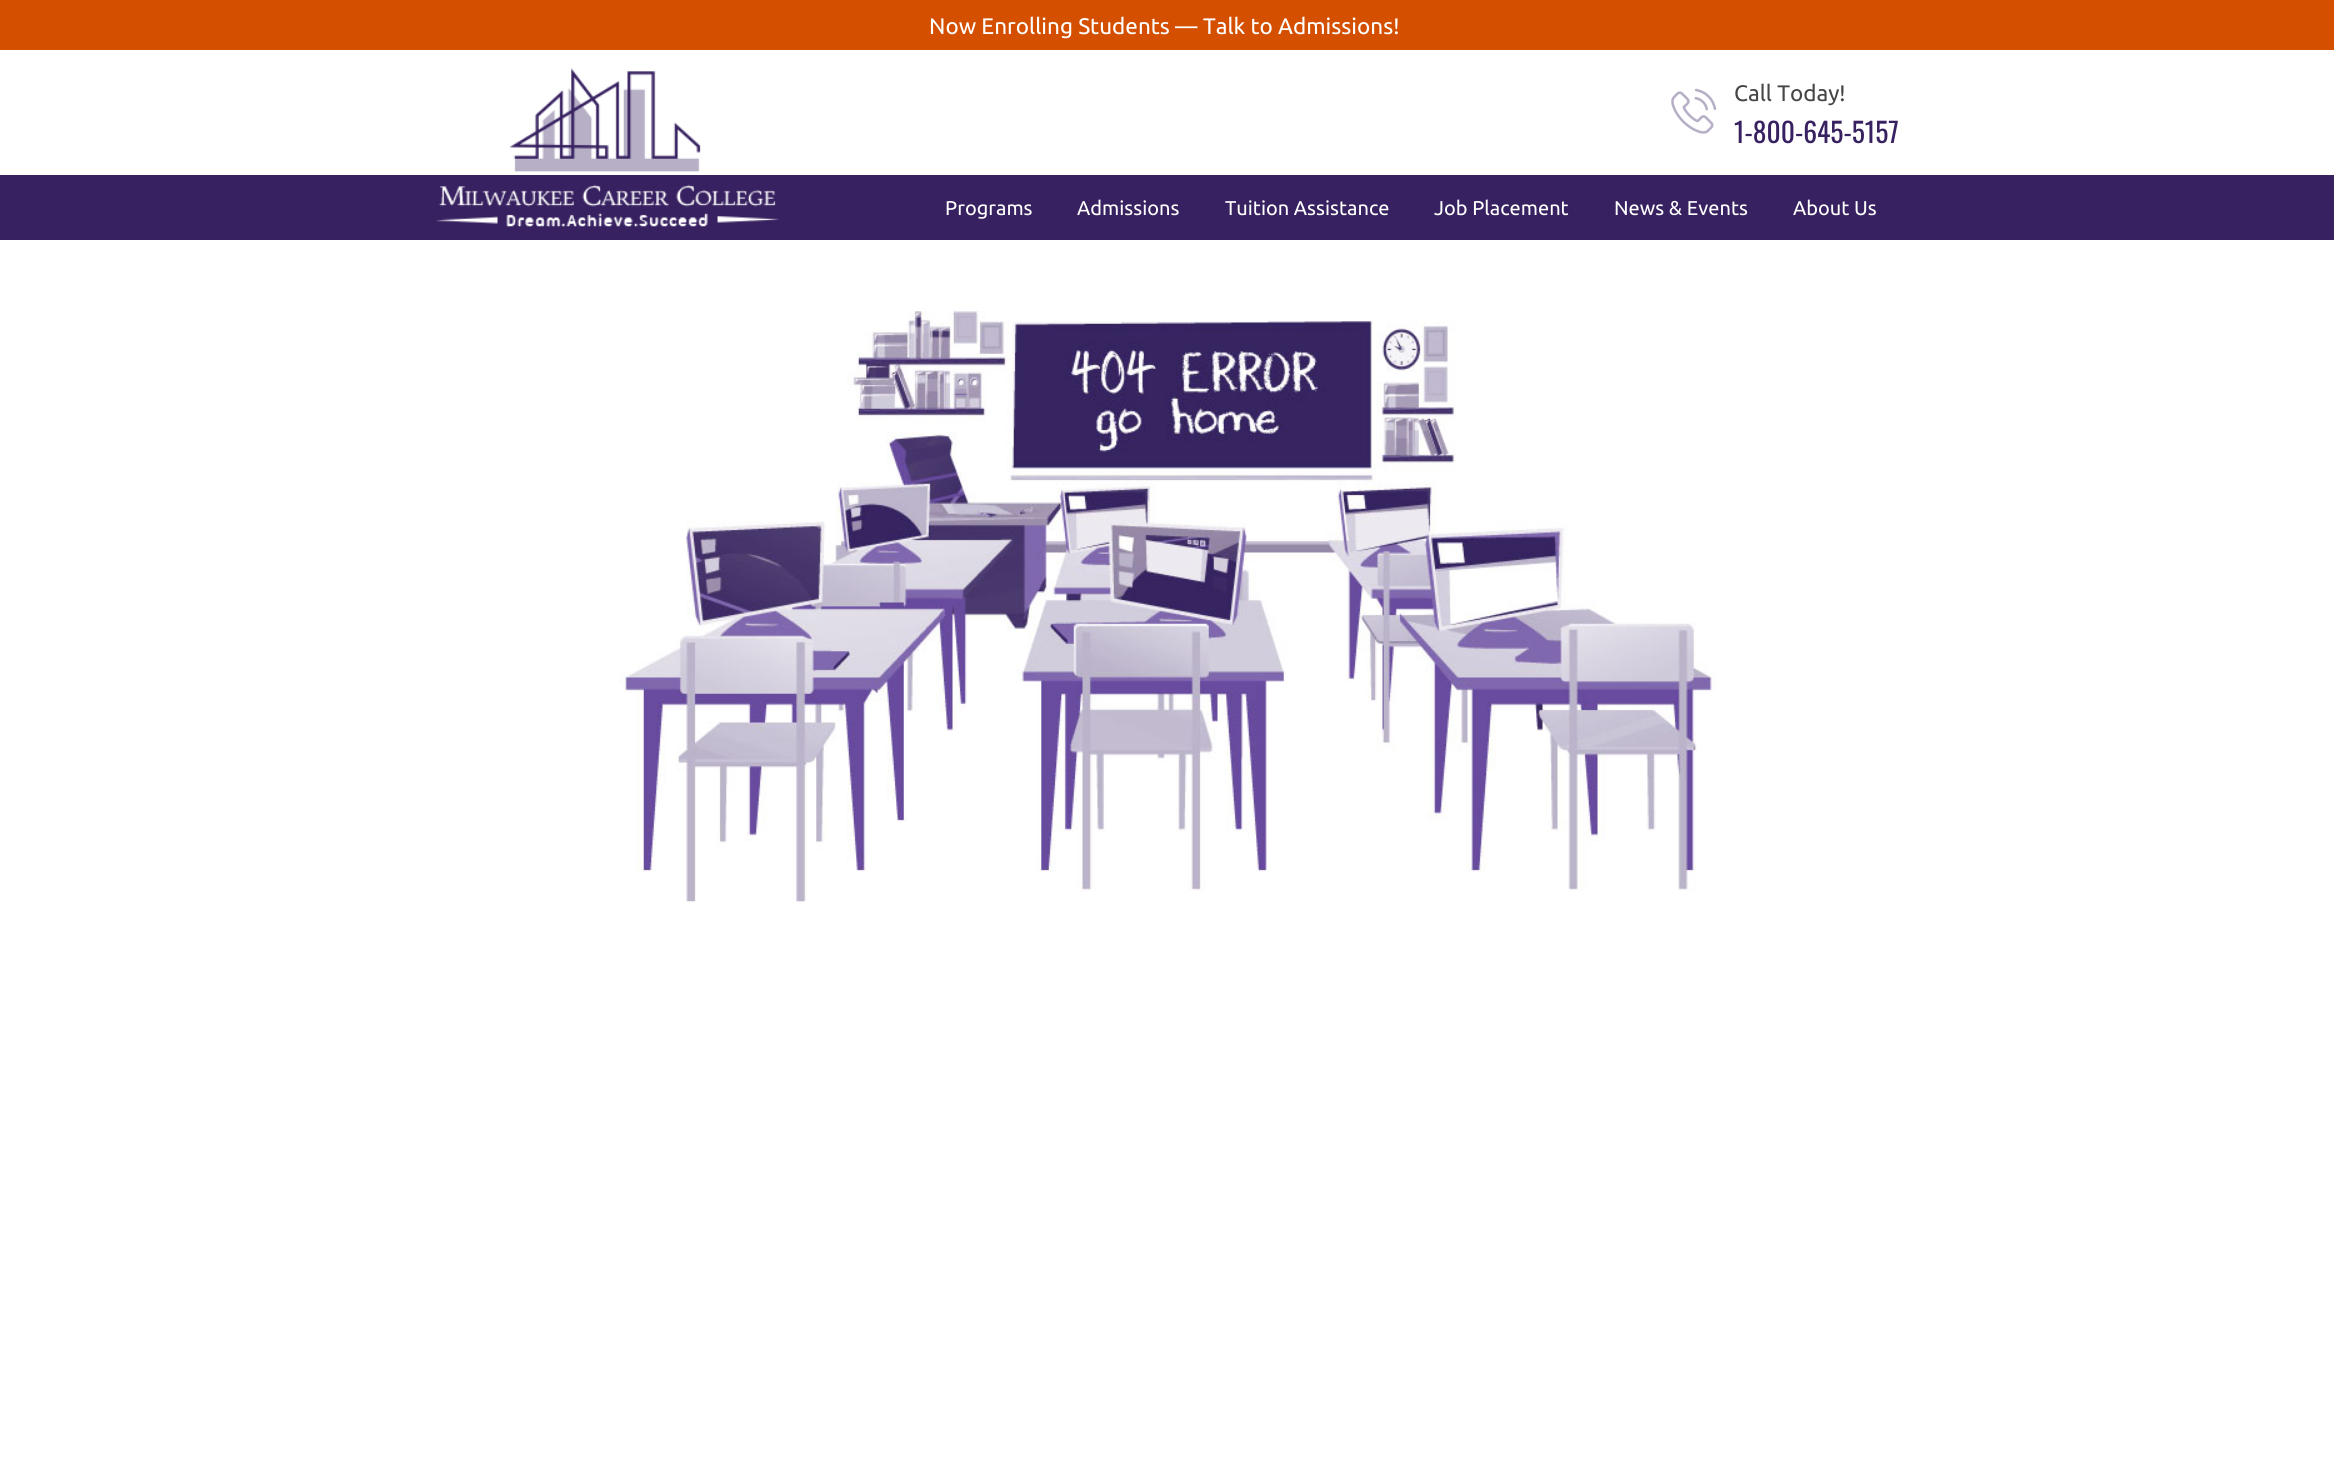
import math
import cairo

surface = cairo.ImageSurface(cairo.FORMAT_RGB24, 2334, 1461)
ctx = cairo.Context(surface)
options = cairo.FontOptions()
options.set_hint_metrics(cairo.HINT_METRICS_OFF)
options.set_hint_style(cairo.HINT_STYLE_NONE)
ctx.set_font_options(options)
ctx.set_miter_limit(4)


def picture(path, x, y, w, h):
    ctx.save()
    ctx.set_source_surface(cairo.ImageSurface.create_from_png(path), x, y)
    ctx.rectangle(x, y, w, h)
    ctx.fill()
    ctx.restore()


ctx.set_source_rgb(1, 1, 1)
ctx.paint()
ctx.set_source_rgb(0.831, 0.31, 0)
ctx.rectangle(0, 0, 2334, 50)
ctx.fill()
ctx.select_font_face("Ubuntu")
ctx.set_font_size(22.5)
ctx.set_source_rgb(1, 1, 1)
ctx.move_to(929, 34)
ctx.show_text("Now Enrolling Students —")
ctx.move_to(1203, 34)
ctx.show_text("Talk to Admissions!")
ctx.set_source_rgb(0.216, 0.129, 0.376)
ctx.rectangle(0, 175, 2334, 65)
ctx.fill()
picture("img1.png", 436, 68, 343, 159)
picture("img2.png", 1671, 88, 46, 46)
ctx.set_source_rgb(0.275, 0.275, 0.275)
ctx.move_to(1734, 101)
ctx.show_text("Call Today!")
ctx.select_font_face("Oswald")
ctx.set_font_size(27.5)
ctx.set_source_rgb(0.216, 0.129, 0.376)
ctx.move_to(1734, 143)
ctx.show_text("1-800-645-5157")
ctx.select_font_face("Ubuntu")
ctx.set_font_size(20)
ctx.set_source_rgb(1, 1, 1)
ctx.move_to(945, 215)
ctx.show_text("Programs")
ctx.move_to(1077, 215)
ctx.show_text("Admissions")
ctx.move_to(1225, 215)
ctx.show_text("Tuition Assistance")
ctx.move_to(1434, 215)
ctx.show_text("Job Placement")
ctx.move_to(1614, 215)
ctx.show_text("News & Events")
ctx.move_to(1793, 215)
ctx.show_text("About Us")
picture("img3.png", 619, 311, 1097, 591)
surface.write_to_png("page.png")
